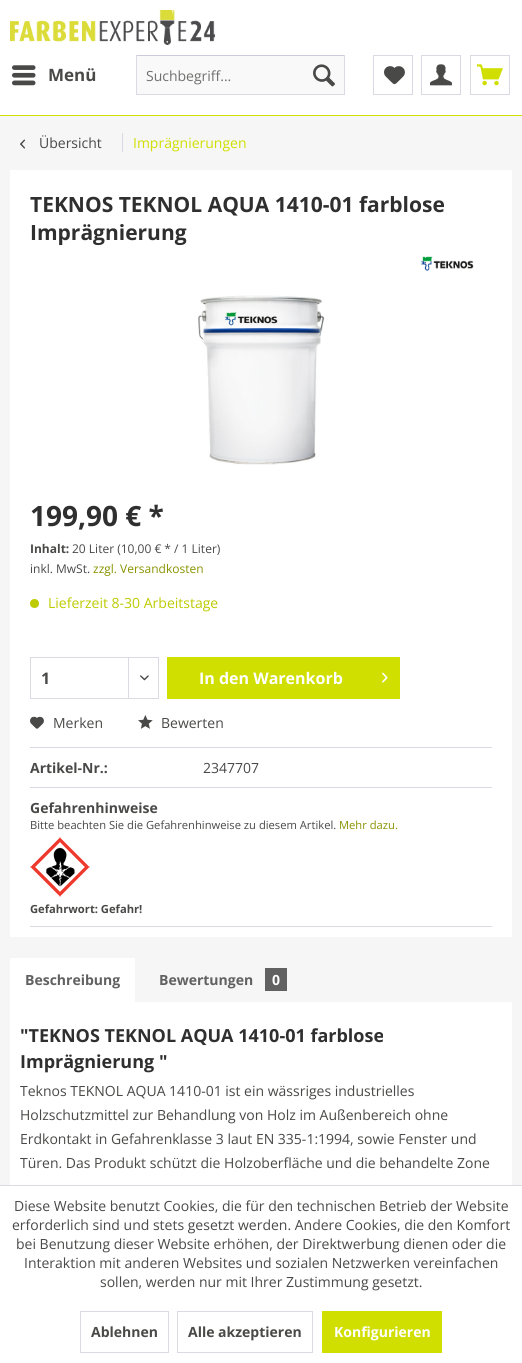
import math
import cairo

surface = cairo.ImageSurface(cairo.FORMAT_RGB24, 522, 1363)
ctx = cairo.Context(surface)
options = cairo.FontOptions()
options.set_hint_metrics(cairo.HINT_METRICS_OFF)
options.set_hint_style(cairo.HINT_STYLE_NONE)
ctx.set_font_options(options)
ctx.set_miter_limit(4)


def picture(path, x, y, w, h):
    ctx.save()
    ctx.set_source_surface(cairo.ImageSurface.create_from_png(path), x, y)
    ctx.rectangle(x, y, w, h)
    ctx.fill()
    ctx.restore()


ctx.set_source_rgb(0.961, 0.961, 0.961)
ctx.paint()
ctx.set_source_rgb(1, 1, 1)
ctx.rectangle(0, 0, 522, 115)
ctx.fill()
ctx.set_source_rgb(0.816, 0.875, 0)
ctx.rectangle(0, 115, 522, 1)
ctx.fill()
picture("img1.png", 10, 10, 205, 35)
picture("img2.png", 12, 65, 24, 21)
ctx.select_font_face("Open Sans", cairo.FONT_SLANT_NORMAL, cairo.FONT_WEIGHT_BOLD)
ctx.set_font_size(17)
ctx.set_source_rgb(0.286, 0.286, 0.282)
ctx.move_to(48, 81)
ctx.show_text("Menü")
ctx.set_source_rgb(0.973, 0.973, 0.98)
ctx.rectangle(137, 56, 207, 38)
ctx.fill()
ctx.set_source_rgb(0.796, 0.796, 0.859)
ctx.rectangle(136, 55, 209, 1)
ctx.fill()
ctx.set_source_rgb(0.855, 0.855, 0.898)
ctx.rectangle(344, 55, 1, 40)
ctx.fill()
ctx.rectangle(136, 94, 209, 1)
ctx.fill()
ctx.rectangle(136, 55, 1, 40)
ctx.fill()
ctx.select_font_face("Open Sans")
ctx.set_font_size(14)
ctx.set_source_rgb(0.439, 0.439, 0.431)
ctx.move_to(146, 81)
ctx.show_text("Suchbegriff...")
picture("img3.png", 313, 64, 22, 23)
ctx.rectangle(373.5, 55.5, 39, 39)
ctx.set_source_rgb(0.855, 0.855, 0.898)
ctx.set_line_width(1)
ctx.stroke()
picture("img4.png", 384, 66, 21, 19)
ctx.rectangle(421.5, 55.5, 39, 39)
ctx.stroke()
picture("img5.png", 430, 64, 22, 22)
ctx.rectangle(470.5, 55.5, 39, 39)
ctx.stroke()
picture("img6.png", 477, 64, 26, 22)
picture("img7.png", 20, 139, 5, 10)
ctx.set_source_rgb(0.286, 0.286, 0.282)
ctx.move_to(39, 148)
ctx.show_text("Übersicht")
ctx.set_source_rgb(0.855, 0.855, 0.898)
ctx.rectangle(122, 133, 1, 19)
ctx.fill()
ctx.set_source_rgb(0.816, 0.875, 0)
ctx.move_to(133, 148)
ctx.show_text("Imprägnierungen")
ctx.set_source_rgb(1, 1, 1)
ctx.rectangle(10, 170, 502, 767)
ctx.fill()
ctx.select_font_face("Open Sans", cairo.FONT_SLANT_NORMAL, cairo.FONT_WEIGHT_BOLD)
ctx.set_font_size(21)
ctx.set_source_rgb(0.184, 0.184, 0.184)
ctx.move_to(30, 212)
ctx.show_text("TEKNOS TEKNOL AQUA 1410-01 farblose")
ctx.move_to(30, 240)
ctx.show_text("Imprägnierung")
picture("img8.png", 421, 256, 53, 15)
picture("img9.png", 198, 295, 127, 170)
ctx.set_font_size(28)
ctx.move_to(30, 526)
ctx.show_text("199,90 € *")
ctx.set_font_size(12)
ctx.set_source_rgb(0.286, 0.286, 0.282)
ctx.move_to(30, 553)
ctx.show_text("Inhalt:")
ctx.select_font_face("Open Sans")
ctx.move_to(72, 553)
ctx.show_text("20 Liter (10,00 € * / 1 Liter)")
ctx.move_to(30, 573)
ctx.show_text("inkl. MwSt.")
ctx.set_source_rgb(0.537, 0.576, 0)
ctx.move_to(93, 573)
ctx.show_text("zzgl. Versandkosten")
ctx.set_source_rgb(0.741, 0.796, 0)
ctx.new_path()
ctx.arc(34.5, 603.5, 4.5, 0, 2 * math.pi)
ctx.fill()
ctx.set_font_size(14)
ctx.move_to(48, 608)
ctx.show_text("Lieferzeit 8-30 Arbeitstage")
ctx.rectangle(30.5, 657.5, 128, 41)
ctx.set_source_rgb(0.855, 0.855, 0.898)
ctx.stroke()
ctx.select_font_face("Open Sans", cairo.FONT_SLANT_NORMAL, cairo.FONT_WEIGHT_BOLD)
ctx.set_font_size(16)
ctx.set_source_rgb(0.286, 0.286, 0.282)
ctx.move_to(41, 684)
ctx.show_text("1")
ctx.set_source_rgb(0.855, 0.855, 0.898)
ctx.rectangle(128, 658, 1, 40)
ctx.fill()
picture("img10.png", 140, 675, 9, 6)
ctx.set_source_rgb(0.816, 0.875, 0)
ctx.rectangle(167, 657, 233, 42)
ctx.fill()
ctx.set_source_rgb(1, 1, 1)
ctx.move_to(199, 684)
ctx.show_text("In den Warenkorb")
picture("img11.png", 382, 672, 6, 11)
ctx.set_source_rgb(0.855, 0.855, 0.898)
ctx.rectangle(30, 747, 462, 1)
ctx.fill()
picture("img12.png", 30, 716, 14, 13)
ctx.select_font_face("Open Sans")
ctx.set_font_size(14)
ctx.set_source_rgb(0.286, 0.286, 0.282)
ctx.move_to(53, 728)
ctx.show_text("Merken")
picture("img13.png", 138, 715, 15, 14)
ctx.move_to(161, 728)
ctx.show_text("Bewerten")
ctx.select_font_face("Open Sans", cairo.FONT_SLANT_NORMAL, cairo.FONT_WEIGHT_BOLD)
ctx.move_to(30, 773)
ctx.show_text("Artikel-Nr.:")
ctx.select_font_face("Open Sans")
ctx.move_to(203, 773)
ctx.show_text("2347707")
ctx.set_source_rgb(0.855, 0.855, 0.898)
ctx.rectangle(30, 787, 462, 1)
ctx.fill()
ctx.rectangle(30, 926, 462, 1)
ctx.fill()
ctx.select_font_face("Open Sans", cairo.FONT_SLANT_NORMAL, cairo.FONT_WEIGHT_BOLD)
ctx.set_source_rgb(0.286, 0.286, 0.282)
ctx.move_to(30, 813)
ctx.show_text("Gefahrenhinweise")
ctx.select_font_face("Open Sans")
ctx.set_font_size(11.2)
ctx.move_to(30, 829)
ctx.show_text("Bitte beachten Sie die Gefahrenhinweise zu diesem Artikel.")
ctx.set_source_rgb(0.537, 0.576, 0)
ctx.move_to(339, 829)
ctx.show_text("Mehr dazu.")
picture("img14.png", 30, 837, 60, 60)
ctx.select_font_face("Open Sans", cairo.FONT_SLANT_NORMAL, cairo.FONT_WEIGHT_BOLD)
ctx.set_source_rgb(0.286, 0.286, 0.282)
ctx.move_to(30, 913)
ctx.show_text("Gefahrwort: Gefahr!")
ctx.set_source_rgb(1, 1, 1)
ctx.rectangle(10, 958, 125, 44)
ctx.fill()
ctx.set_font_size(14)
ctx.set_source_rgb(0.38, 0.38, 0.38)
ctx.move_to(25, 985)
ctx.show_text("Beschreibung")
ctx.move_to(159, 985)
ctx.show_text("Bewertungen")
ctx.rectangle(265, 968, 22, 23)
ctx.fill()
ctx.set_source_rgb(1, 1, 1)
ctx.move_to(272, 985)
ctx.show_text("0")
ctx.rectangle(10, 1002, 502, 183)
ctx.fill()
ctx.set_font_size(18)
ctx.set_source_rgb(0.184, 0.184, 0.184)
ctx.move_to(20, 1042)
ctx.show_text("\"TEKNOS TEKNOL AQUA 1410-01 farblose")
ctx.move_to(20, 1068)
ctx.show_text("Imprägnierung \"")
ctx.select_font_face("Open Sans")
ctx.set_font_size(14)
ctx.set_source_rgb(0.286, 0.286, 0.282)
ctx.move_to(20, 1096)
ctx.show_text("Teknos TEKNOL AQUA 1410-01 ist ein wässriges industrielles")
ctx.move_to(20, 1120)
ctx.show_text("Holzschutzmittel zur Behandlung von Holz im Außenbereich ohne")
ctx.move_to(20, 1144)
ctx.show_text("Erdkontakt in Gefahrenklasse 3 laut EN 335-1:1994, sowie Fenster und")
ctx.move_to(20, 1168)
ctx.show_text("Türen. Das Produkt schützt die Holzoberfläche und die behandelte Zone")
ctx.set_source_rgb(1, 1, 1)
ctx.rectangle(0, 1186, 522, 177)
ctx.fill()
ctx.set_source_rgb(0.855, 0.855, 0.898)
ctx.rectangle(0, 1185, 522, 1)
ctx.fill()
ctx.set_source_rgb(0.286, 0.286, 0.282)
ctx.move_to(14, 1211)
ctx.show_text("Diese Website benutzt Cookies, die für den technischen Betrieb der Website")
ctx.move_to(12, 1230)
ctx.show_text("erforderlich sind und stets gesetzt werden. Andere Cookies, die den Komfort")
ctx.move_to(16, 1249)
ctx.show_text("bei Benutzung dieser Website erhöhen, der Direktwerbung dienen oder die")
ctx.move_to(24, 1268)
ctx.show_text("Interaktion mit anderen Websites und sozialen Netzwerken vereinfachen")
ctx.move_to(100, 1287)
ctx.show_text("sollen, werden nur mit Ihrer Zustimmung gesetzt.")
ctx.rectangle(80.5, 1311.5, 88, 41)
ctx.set_source_rgb(0.855, 0.855, 0.898)
ctx.stroke()
ctx.select_font_face("Open Sans", cairo.FONT_SLANT_NORMAL, cairo.FONT_WEIGHT_BOLD)
ctx.set_source_rgb(0.286, 0.286, 0.282)
ctx.move_to(91, 1337)
ctx.show_text("Ablehnen")
ctx.rectangle(177.5, 1311.5, 135, 41)
ctx.set_source_rgb(0.855, 0.855, 0.898)
ctx.stroke()
ctx.set_source_rgb(0.286, 0.286, 0.282)
ctx.move_to(188, 1337)
ctx.show_text("Alle akzeptieren")
ctx.set_source_rgb(0.816, 0.875, 0)
ctx.rectangle(322, 1311, 120, 42)
ctx.fill()
ctx.set_source_rgb(1, 1, 1)
ctx.move_to(334, 1337)
ctx.show_text("Konfigurieren")
surface.write_to_png("page.png")
